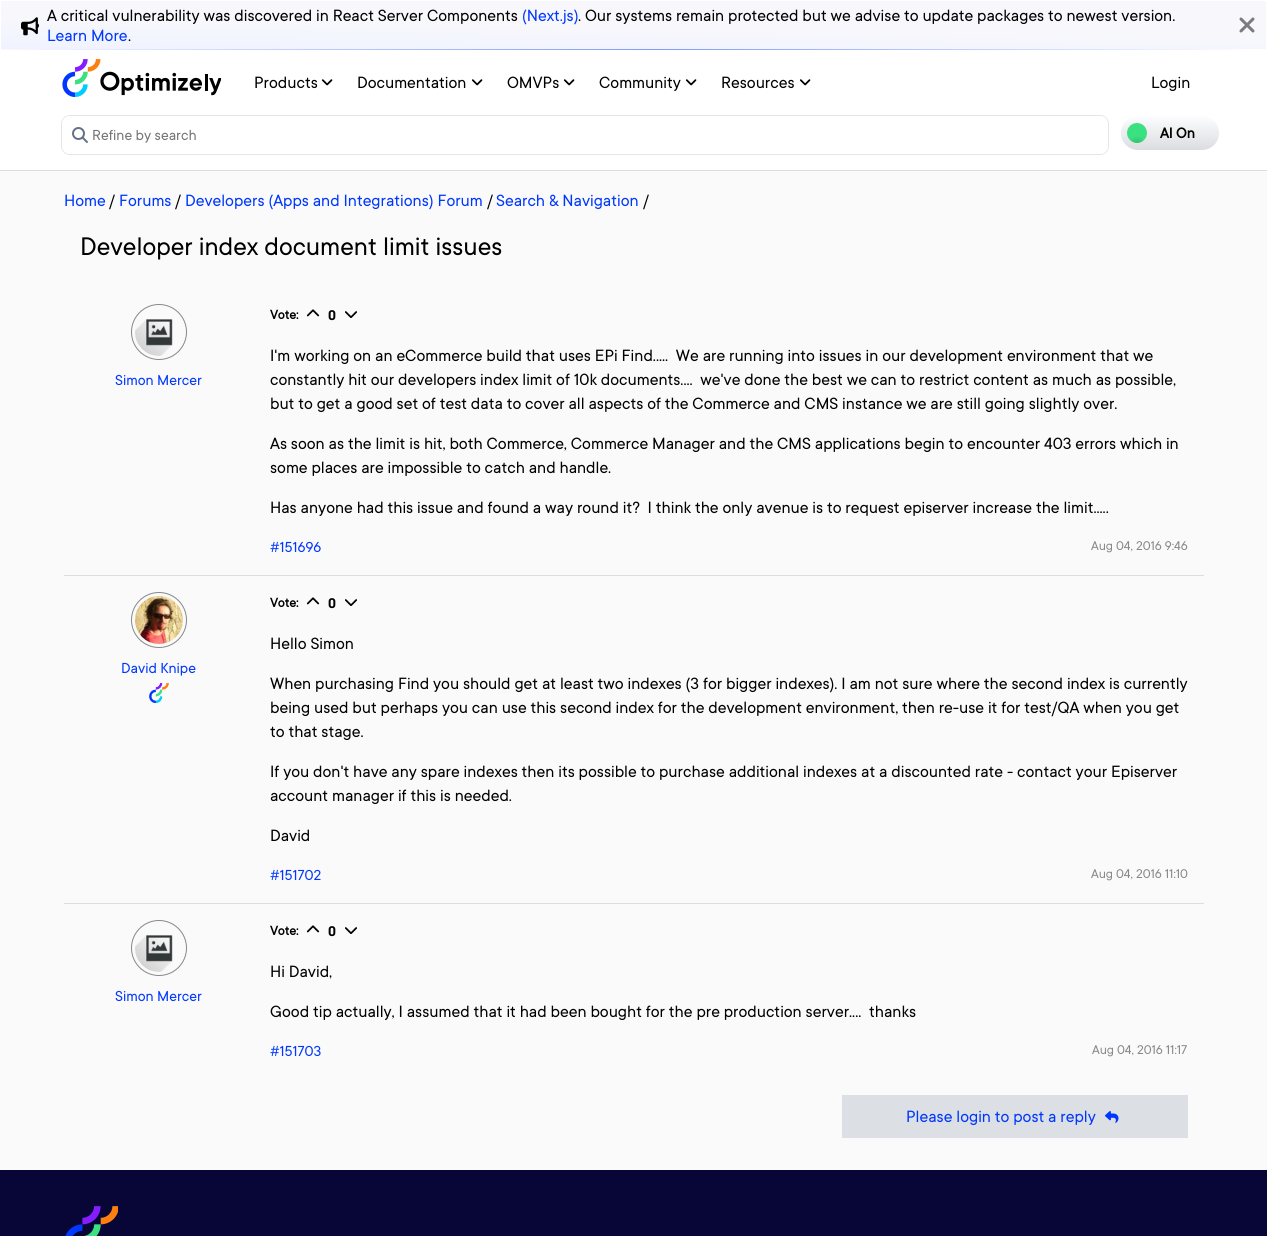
import math
import cairo

surface = cairo.ImageSurface(cairo.FORMAT_RGB24, 1267, 1236)
ctx = cairo.Context(surface)
options = cairo.FontOptions()
options.set_hint_metrics(cairo.HINT_METRICS_OFF)
options.set_hint_style(cairo.HINT_STYLE_NONE)
ctx.set_font_options(options)
ctx.set_miter_limit(4)


def round_rect(x, y, w, h, r):
    ctx.new_sub_path()
    for i, (u, v) in enumerate([(x + w - r, y + h - r), (x + r, y + h - r), (x + r, y + r), (x + w - r, y + r)]):
        ctx.arc(u, v, r, i * math.pi / 2, (i + 1) * math.pi / 2)
    ctx.close_path()


def picture(path, x, y, w, h):
    ctx.save()
    ctx.set_source_surface(cairo.ImageSurface.create_from_png(path), x, y)
    ctx.rectangle(x, y, w, h)
    ctx.fill()
    ctx.restore()


ctx.set_source_rgb(0.98, 0.98, 0.98)
ctx.paint()
ctx.set_source_rgb(1, 1, 1)
ctx.rectangle(0, 0, 1267, 170)
ctx.fill()
picture("img1.png", 1, 49, 1242, 1)
gradient = cairo.LinearGradient(634, 0.9, 633, 59)
gradient.add_color_stop_rgba(0.42, 0.973, 0.973, 0.988, 1)
gradient.add_color_stop_rgba(1, 0.941, 0.953, 1, 1)
ctx.set_source(gradient)
ctx.rectangle(1, 1, 1265, 48)
ctx.fill()
picture("img2.png", 21, 17, 18, 19)
ctx.select_font_face("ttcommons")
ctx.set_font_size(18)
ctx.set_source_rgb(0, 0, 0)
ctx.move_to(47, 21)
ctx.show_text("A critical vulnerability was discovered in React Server Components")
ctx.set_source_rgb(0, 0.216, 1)
ctx.move_to(522, 21)
ctx.show_text("(Next.js)")
ctx.set_source_rgb(0, 0, 0)
ctx.move_to(578, 21)
ctx.show_text(". Our systems remain protected but we advise to update packages to newest version.")
ctx.set_source_rgb(0, 0.216, 1)
ctx.move_to(47, 41)
ctx.show_text("Learn More")
ctx.set_source_rgb(0, 0, 0)
ctx.move_to(128, 41)
ctx.show_text(".")
picture("img3.png", 1239, 17, 16, 16)
ctx.set_source_rgb(0.867, 0.867, 0.867)
ctx.rectangle(0, 170, 1267, 1)
ctx.fill()
picture("img4.png", 62, 59, 159, 38)
ctx.set_source_rgb(0, 0, 0)
ctx.move_to(254, 88)
ctx.show_text("Products")
picture("img5.png", 321, 79, 12, 7)
ctx.move_to(357, 88)
ctx.show_text("Documentation")
picture("img5.png", 471, 79, 12, 7)
ctx.move_to(507, 88)
ctx.show_text("OMVPs")
picture("img5.png", 563, 79, 12, 7)
ctx.move_to(599, 88)
ctx.show_text("Community")
picture("img5.png", 685, 79, 12, 7)
ctx.move_to(721, 88)
ctx.show_text("Resources")
picture("img5.png", 799, 79, 12, 7)
ctx.move_to(1151, 88)
ctx.show_text("Login")
round_rect(61.5, 115.5, 1047, 39, 8.5)
ctx.set_source_rgb(0.898, 0.898, 0.898)
ctx.set_line_width(1)
ctx.stroke()
ctx.set_source_rgb(1, 1, 1)
round_rect(62, 116, 1046, 38, 8)
ctx.fill()
picture("img6.png", 72, 127, 16, 16)
ctx.set_font_size(16)
ctx.set_source_rgb(0.459, 0.459, 0.459)
ctx.move_to(92, 140)
ctx.show_text("Refine by search")
gradient = cairo.LinearGradient(1170, 116, 1170, 150)
gradient.add_color_stop_rgba(0, 0.992, 0.992, 0.996, 1)
gradient.add_color_stop_rgba(1, 0.855, 0.867, 0.882, 1)
ctx.set_source(gradient)
round_rect(1121, 116, 98, 34, 17)
ctx.fill()
gradient = cairo.RadialGradient(1137, 146, 0, 1137, 146, 23)
gradient.add_color_stop_rgba(0, 0.184, 0.702, 0.404, 1)
gradient.add_color_stop_rgba(0.44, 0.231, 0.878, 0.506, 1)
ctx.set_source(gradient)
ctx.arc(1137, 133, 10, 0, 2 * math.pi)
ctx.fill()
ctx.select_font_face("ttcommons", cairo.FONT_SLANT_NORMAL, cairo.FONT_WEIGHT_BOLD)
ctx.set_source_rgb(0, 0, 0)
ctx.move_to(1160, 138)
ctx.show_text("AI On")
ctx.select_font_face("ttcommons")
ctx.set_font_size(18)
ctx.set_source_rgb(0, 0.216, 1)
ctx.move_to(64, 206)
ctx.show_text("Home")
ctx.set_source_rgb(0, 0, 0)
ctx.move_to(109, 206)
ctx.show_text("/")
ctx.set_source_rgb(0, 0.216, 1)
ctx.move_to(119, 206)
ctx.show_text("Forums")
ctx.set_source_rgb(0, 0, 0)
ctx.move_to(175, 206)
ctx.show_text("/")
ctx.set_source_rgb(0, 0.216, 1)
ctx.move_to(185, 206)
ctx.show_text("Developers (Apps and Integrations) Forum")
ctx.set_source_rgb(0, 0, 0)
ctx.move_to(487, 206)
ctx.show_text("/")
ctx.set_source_rgb(0, 0.216, 1)
ctx.move_to(496, 206)
ctx.show_text("Search & Navigation")
ctx.set_source_rgb(0, 0, 0)
ctx.move_to(643, 206)
ctx.show_text("/")
ctx.set_font_size(28)
ctx.move_to(80, 255)
ctx.show_text("Developer index document limit issues")
ctx.new_path()
ctx.arc(159, 332, 27.5, 0, 2 * math.pi)
ctx.set_source_rgb(0.533, 0.533, 0.533)
ctx.stroke()
picture("img7.png", 135, 319, 38, 37)
ctx.set_font_size(16)
ctx.set_source_rgb(0, 0.216, 1)
ctx.move_to(115, 385)
ctx.show_text("Simon Mercer")
ctx.select_font_face("ttcommons", cairo.FONT_SLANT_NORMAL, cairo.FONT_WEIGHT_BOLD)
ctx.set_font_size(14)
ctx.set_source_rgb(0, 0, 0)
ctx.move_to(270, 319)
ctx.show_text("Vote:")
picture("img8.png", 306, 309, 14, 8)
ctx.select_font_face("Barlow", cairo.FONT_SLANT_NORMAL, cairo.FONT_WEIGHT_BOLD)
ctx.move_to(328, 320)
ctx.show_text("0")
picture("img9.png", 345, 311, 12, 7)
ctx.select_font_face("ttcommons")
ctx.set_font_size(18)
ctx.move_to(270, 361)
ctx.show_text("I'm working on an eCommerce build that uses EPi Find.....  We are running into issues in our development environment that we")
ctx.move_to(270, 385)
ctx.show_text("constantly hit our developers index limit of 10k documents....  we've done the best we can to restrict content as much as possible,")
ctx.move_to(270, 409)
ctx.show_text("but to get a good set of test data to cover all aspects of the Commerce and CMS instance we are still going slightly over.")
ctx.move_to(270, 449)
ctx.show_text("As soon as the limit is hit, both Commerce, Commerce Manager and the CMS applications begin to encounter 403 errors which in")
ctx.move_to(270, 473)
ctx.show_text("some places are impossible to catch and handle.")
ctx.move_to(270, 513)
ctx.show_text("Has anyone had this issue and found a way round it?  I think the only avenue is to request episerver increase the limit.....")
ctx.set_font_size(16)
ctx.set_source_rgb(0, 0.216, 1)
ctx.move_to(270, 552)
ctx.show_text("#151696")
ctx.set_font_size(14)
ctx.set_source_rgb(0.533, 0.533, 0.533)
ctx.move_to(1091, 550)
ctx.show_text("Aug 04, 2016 9:46")
ctx.set_source_rgb(0.867, 0.867, 0.867)
ctx.rectangle(64, 575, 1140, 1)
ctx.fill()
ctx.arc(159, 620, 27.5, 0, 2 * math.pi)
ctx.set_source_rgb(0.533, 0.533, 0.533)
ctx.stroke()
picture("img10.png", 135, 596, 48, 48)
ctx.set_font_size(16)
ctx.set_source_rgb(0, 0.216, 1)
ctx.move_to(121, 673)
ctx.show_text("David Knipe")
picture("img11.png", 149, 683, 20, 20)
ctx.select_font_face("ttcommons", cairo.FONT_SLANT_NORMAL, cairo.FONT_WEIGHT_BOLD)
ctx.set_font_size(14)
ctx.set_source_rgb(0, 0, 0)
ctx.move_to(270, 607)
ctx.show_text("Vote:")
picture("img8.png", 306, 597, 14, 8)
ctx.select_font_face("Barlow", cairo.FONT_SLANT_NORMAL, cairo.FONT_WEIGHT_BOLD)
ctx.move_to(328, 608)
ctx.show_text("0")
picture("img9.png", 345, 599, 12, 7)
ctx.select_font_face("ttcommons")
ctx.set_font_size(18)
ctx.move_to(270, 649)
ctx.show_text("Hello Simon")
ctx.move_to(270, 689)
ctx.show_text("When purchasing Find you should get at least two indexes (3 for bigger indexes). I am not sure where the second index is currently")
ctx.move_to(270, 713)
ctx.show_text("being used but perhaps you can use this second index for the development environment, then re-use it for test/QA when you get")
ctx.move_to(270, 737)
ctx.show_text("to that stage.")
ctx.move_to(270, 777)
ctx.show_text("If you don't have any spare indexes then its possible to purchase additional indexes at a discounted rate - contact your Episerver")
ctx.move_to(270, 801)
ctx.show_text("account manager if this is needed.")
ctx.move_to(270, 841)
ctx.show_text("David")
ctx.set_font_size(16)
ctx.set_source_rgb(0, 0.216, 1)
ctx.move_to(270, 880)
ctx.show_text("#151702")
ctx.set_font_size(14)
ctx.set_source_rgb(0.533, 0.533, 0.533)
ctx.move_to(1091, 878)
ctx.show_text("Aug 04, 2016 11:10")
ctx.set_source_rgb(0.867, 0.867, 0.867)
ctx.rectangle(64, 903, 1140, 1)
ctx.fill()
ctx.arc(159, 948, 27.5, 0, 2 * math.pi)
ctx.set_source_rgb(0.533, 0.533, 0.533)
ctx.stroke()
picture("img7.png", 135, 935, 38, 37)
ctx.set_font_size(16)
ctx.set_source_rgb(0, 0.216, 1)
ctx.move_to(115, 1001)
ctx.show_text("Simon Mercer")
ctx.select_font_face("ttcommons", cairo.FONT_SLANT_NORMAL, cairo.FONT_WEIGHT_BOLD)
ctx.set_font_size(14)
ctx.set_source_rgb(0, 0, 0)
ctx.move_to(270, 935)
ctx.show_text("Vote:")
picture("img8.png", 306, 925, 14, 8)
ctx.select_font_face("Barlow", cairo.FONT_SLANT_NORMAL, cairo.FONT_WEIGHT_BOLD)
ctx.move_to(328, 936)
ctx.show_text("0")
picture("img9.png", 345, 927, 12, 7)
ctx.select_font_face("ttcommons")
ctx.set_font_size(18)
ctx.move_to(270, 977)
ctx.show_text("Hi David,")
ctx.move_to(270, 1017)
ctx.show_text("Good tip actually, I assumed that it had been bought for the pre production server....  thanks")
ctx.set_font_size(16)
ctx.set_source_rgb(0, 0.216, 1)
ctx.move_to(270, 1056)
ctx.show_text("#151703")
ctx.set_font_size(14)
ctx.set_source_rgb(0.533, 0.533, 0.533)
ctx.move_to(1092, 1054)
ctx.show_text("Aug 04, 2016 11:17")
ctx.set_source_rgb(0.863, 0.875, 0.89)
ctx.rectangle(842, 1095, 346, 43)
ctx.fill()
ctx.set_font_size(18)
ctx.set_source_rgb(0, 0.216, 1)
ctx.move_to(906, 1122)
ctx.show_text("Please login to post a reply")
picture("img12.png", 1105, 1111, 14, 12)
ctx.set_source_rgb(0.031, 0.027, 0.212)
ctx.rectangle(0, 1170, 1267, 66)
ctx.fill()
picture("img13.png", 65, 1206, 53, 30)
surface.write_to_png("page.png")
